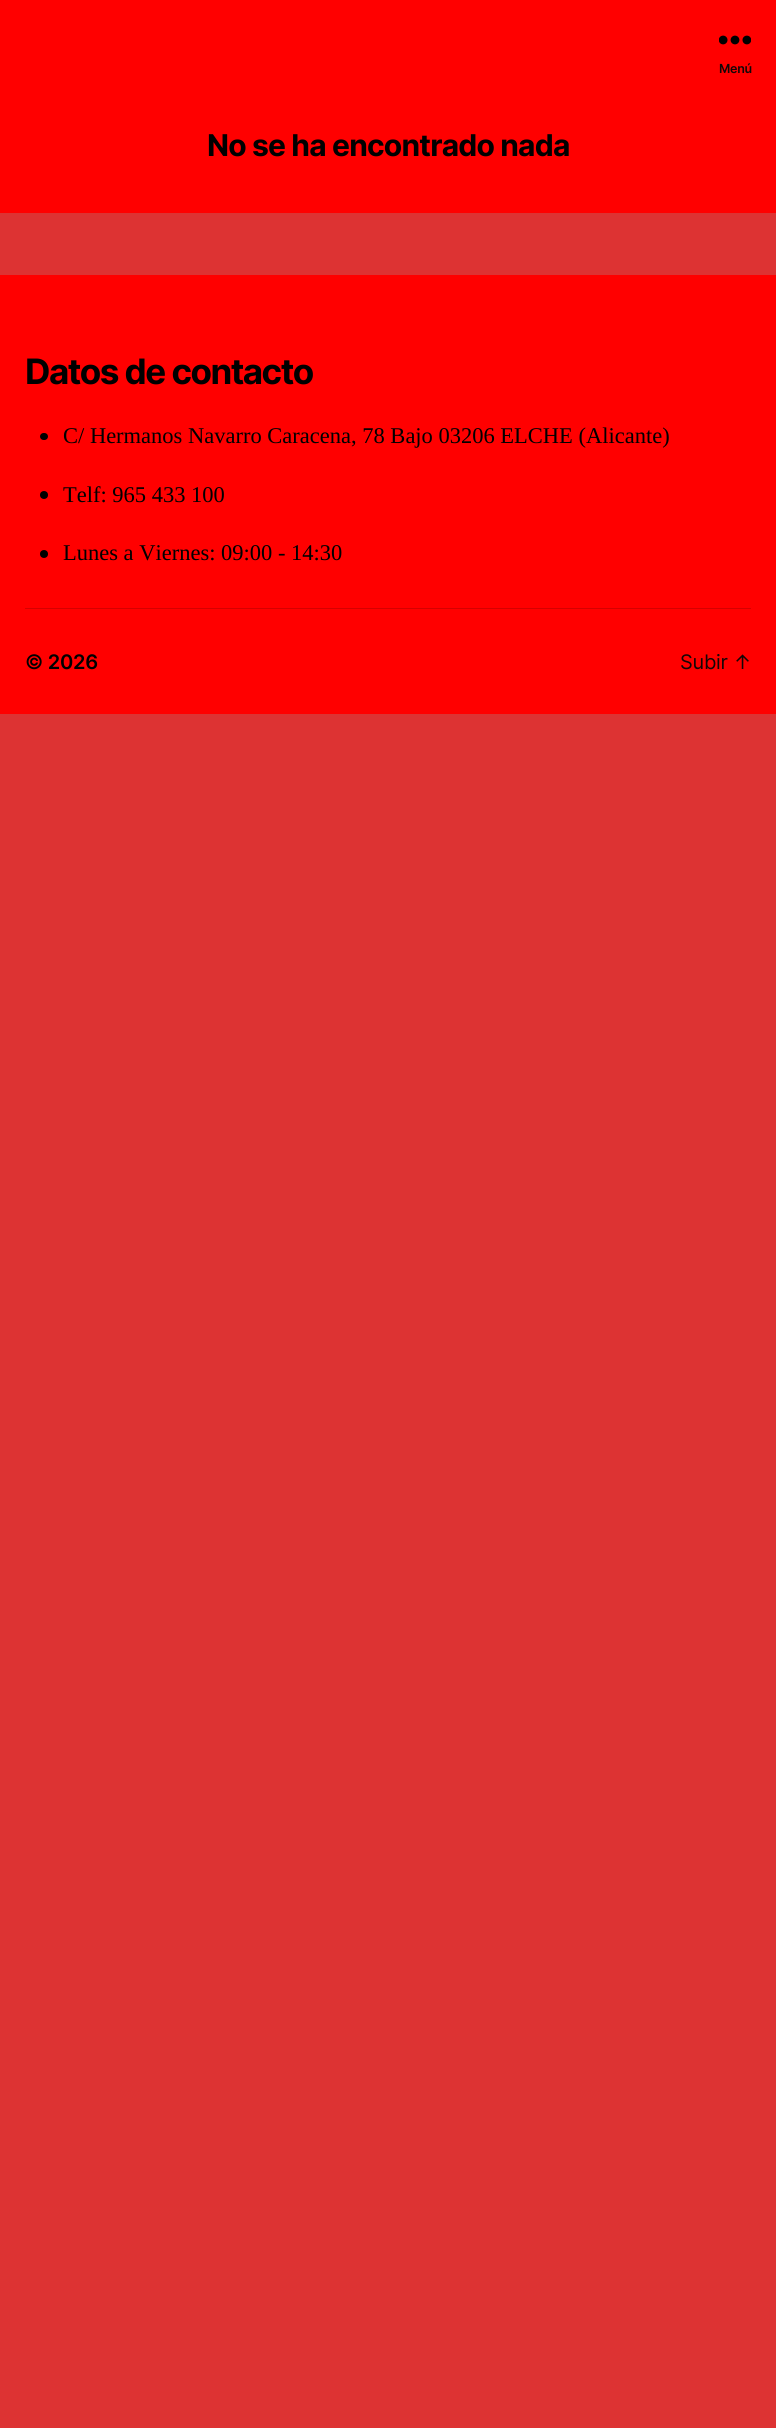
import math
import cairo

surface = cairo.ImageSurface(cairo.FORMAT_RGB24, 776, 2428)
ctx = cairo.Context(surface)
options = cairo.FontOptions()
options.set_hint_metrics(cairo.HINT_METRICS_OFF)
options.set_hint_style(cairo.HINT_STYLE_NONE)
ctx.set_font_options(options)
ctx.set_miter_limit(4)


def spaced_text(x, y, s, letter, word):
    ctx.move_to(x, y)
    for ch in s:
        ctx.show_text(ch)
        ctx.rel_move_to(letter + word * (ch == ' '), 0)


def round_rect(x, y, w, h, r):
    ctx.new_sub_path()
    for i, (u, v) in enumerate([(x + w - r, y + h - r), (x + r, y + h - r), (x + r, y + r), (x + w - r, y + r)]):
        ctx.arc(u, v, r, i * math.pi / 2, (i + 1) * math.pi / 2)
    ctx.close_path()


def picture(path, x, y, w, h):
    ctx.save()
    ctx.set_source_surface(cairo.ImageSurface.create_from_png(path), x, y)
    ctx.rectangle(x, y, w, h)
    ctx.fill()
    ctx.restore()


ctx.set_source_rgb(0.867, 0.2, 0.2)
ctx.paint()
ctx.set_source_rgb(1, 0, 0)
ctx.rectangle(0, 0, 776, 213)
ctx.fill()
picture("img1.png", 719, 35, 32, 10)
ctx.select_font_face("Inter SemiBold")
ctx.set_font_size(12.5)
ctx.set_source_rgb(0.075, 0.024, 0.024)
spaced_text(719, 73, "Menú", -0.25, 0)
ctx.select_font_face("Inter", cairo.FONT_SLANT_NORMAL, cairo.FONT_WEIGHT_BOLD)
ctx.set_font_size(30)
ctx.set_source_rgb(0, 0, 0)
spaced_text(207, 156, "No se ha encontrado nada", -0.8, 0)
ctx.set_source_rgb(1, 0, 0)
ctx.rectangle(0, 275, 776, 439)
ctx.fill()
ctx.set_source_rgb(0.839, 0, 0)
ctx.rectangle(25, 608, 726, 1)
ctx.fill()
ctx.set_font_size(35)
ctx.set_source_rgb(0, 0, 0)
spaced_text(25, 384, "Datos de contacto", -1.5, 0)
round_rect(40, 433, 8, 7, 3.5)
ctx.fill()
ctx.select_font_face("Liberation Serif")
ctx.set_font_size(22.5)
ctx.move_to(63, 443)
ctx.show_text("C/ Hermanos Navarro Caracena, 78 Bajo 03206 ELCHE (Alicante)")
ctx.new_path()
ctx.arc(44, 495, 4, 0, 2 * math.pi)
ctx.fill()
ctx.move_to(63, 502)
ctx.show_text("Telf: 965 433 100")
ctx.new_path()
ctx.arc(44, 554, 4, 0, 2 * math.pi)
ctx.fill()
ctx.move_to(63, 560)
ctx.show_text("Lunes a Viernes: 09:00 - 14:30")
ctx.select_font_face("Inter SemiBold")
ctx.set_font_size(20)
spaced_text(25, 669, "© 2026", -0.25, 0)
ctx.select_font_face("Inter")
ctx.set_source_rgb(0.075, 0.024, 0.024)
spaced_text(680, 669, "Subir ↑", -0.25, 0)
surface.write_to_png("page.png")
